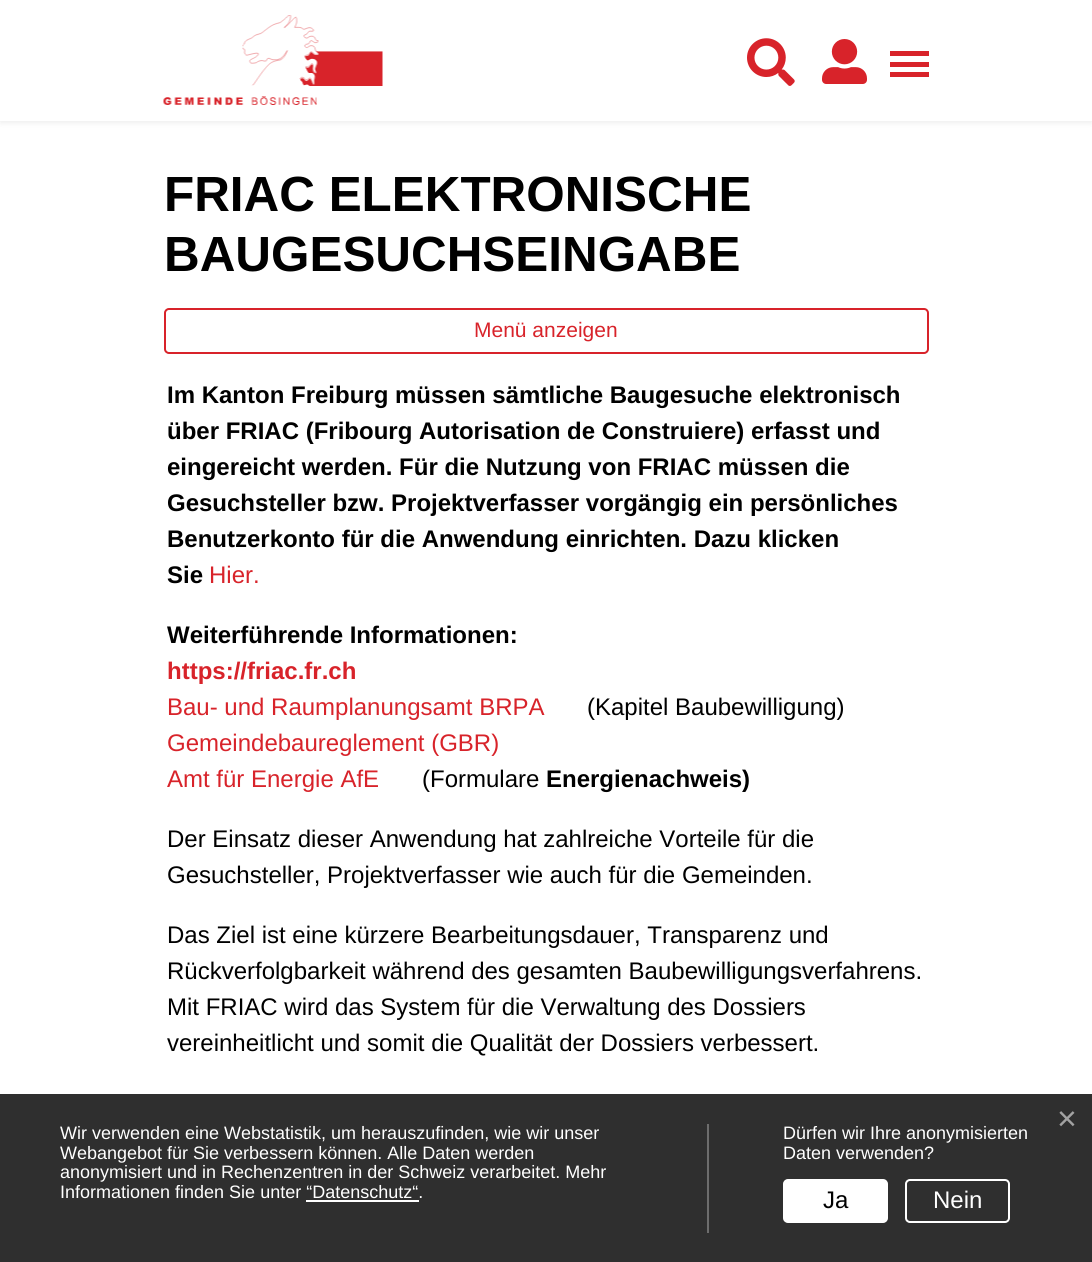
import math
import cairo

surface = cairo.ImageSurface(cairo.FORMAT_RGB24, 1092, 1262)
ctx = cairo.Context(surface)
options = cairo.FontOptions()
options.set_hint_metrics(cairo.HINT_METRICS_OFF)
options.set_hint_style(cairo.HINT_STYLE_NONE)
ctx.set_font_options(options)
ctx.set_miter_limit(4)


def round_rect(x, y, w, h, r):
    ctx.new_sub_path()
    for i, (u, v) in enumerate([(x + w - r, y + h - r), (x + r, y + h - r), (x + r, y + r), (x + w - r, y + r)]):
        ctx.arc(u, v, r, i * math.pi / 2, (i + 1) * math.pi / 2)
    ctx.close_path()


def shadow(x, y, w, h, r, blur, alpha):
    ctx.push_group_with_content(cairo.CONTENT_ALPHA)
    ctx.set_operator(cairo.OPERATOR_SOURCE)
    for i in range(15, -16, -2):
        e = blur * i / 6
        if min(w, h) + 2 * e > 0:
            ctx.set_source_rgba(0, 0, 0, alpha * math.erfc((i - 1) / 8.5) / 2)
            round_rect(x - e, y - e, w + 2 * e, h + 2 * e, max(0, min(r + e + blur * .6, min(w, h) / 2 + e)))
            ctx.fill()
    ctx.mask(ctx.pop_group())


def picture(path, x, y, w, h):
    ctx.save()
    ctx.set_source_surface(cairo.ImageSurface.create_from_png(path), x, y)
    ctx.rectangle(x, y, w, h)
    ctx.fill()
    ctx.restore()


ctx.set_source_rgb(1, 1, 1)
ctx.paint()
ctx.set_source_rgb(0, 0, 0)
shadow(0, 3, 1092, 120, 0, 3, 0.07)
ctx.set_source_rgb(1, 1, 1)
ctx.rectangle(0, 0, 1092, 121)
ctx.fill()
picture("img1.png", 163, 15, 220, 90)
picture("img2.png", 747, 38, 48, 48)
picture("img3.png", 822, 39, 45, 45)
ctx.set_source_rgb(0.847, 0.137, 0.165)
ctx.rectangle(890, 51, 39, 5)
ctx.fill()
ctx.rectangle(890, 62, 39, 5)
ctx.fill()
ctx.rectangle(890, 72, 39, 5)
ctx.fill()
ctx.select_font_face("Liberation Sans", cairo.FONT_SLANT_NORMAL, cairo.FONT_WEIGHT_BOLD)
ctx.set_font_size(49.4)
ctx.set_source_rgb(0, 0, 0)
ctx.move_to(164, 211)
ctx.show_text("FRIAC ELEKTRONISCHE")
ctx.move_to(164, 271)
ctx.show_text("BAUGESUCHSEINGABE")
round_rect(165, 309, 763, 44, 4)
ctx.set_source_rgb(0.847, 0.137, 0.165)
ctx.stroke()
ctx.select_font_face("Liberation Sans")
ctx.set_font_size(21)
ctx.move_to(474, 337)
ctx.show_text("Menü anzeigen")
ctx.select_font_face("Liberation Sans", cairo.FONT_SLANT_NORMAL, cairo.FONT_WEIGHT_BOLD)
ctx.set_font_size(24)
ctx.set_source_rgb(0, 0, 0)
ctx.move_to(167, 403)
ctx.show_text("Im Kanton Freiburg müssen sämtliche Baugesuche elektronisch")
ctx.move_to(167, 439)
ctx.show_text("über FRIAC (Fribourg Autorisation de Construiere) erfasst und")
ctx.move_to(167, 475)
ctx.show_text("eingereicht werden. Für die Nutzung von FRIAC müssen die")
ctx.move_to(167, 511)
ctx.show_text("Gesuchsteller bzw. Projektverfasser vorgängig ein persönliches")
ctx.move_to(167, 547)
ctx.show_text("Benutzerkonto für die Anwendung einrichten. Dazu klicken")
ctx.move_to(167, 583)
ctx.show_text("Sie")
ctx.select_font_face("Liberation Sans")
ctx.set_source_rgb(0.847, 0.137, 0.165)
ctx.move_to(209, 583)
ctx.show_text("Hier.")
ctx.select_font_face("Liberation Sans", cairo.FONT_SLANT_NORMAL, cairo.FONT_WEIGHT_BOLD)
ctx.set_source_rgb(0, 0, 0)
ctx.move_to(167, 643)
ctx.show_text("Weiterführende Informationen:")
ctx.set_source_rgb(0.847, 0.137, 0.165)
ctx.move_to(167, 679)
ctx.show_text("https://friac.fr.ch")
ctx.select_font_face("Liberation Sans")
ctx.move_to(167, 715)
ctx.show_text("Bau- und Raumplanungsamt BRPA")
ctx.set_source_rgb(0, 0, 0)
ctx.move_to(587, 715)
ctx.show_text("(Kapitel Baubewilligung)")
ctx.set_source_rgb(0.847, 0.137, 0.165)
ctx.move_to(167, 751)
ctx.show_text("Gemeindebaureglement (GBR)")
ctx.move_to(167, 787)
ctx.show_text("Amt für Energie AfE")
ctx.set_source_rgb(0, 0, 0)
ctx.move_to(422, 787)
ctx.show_text("(Formulare")
ctx.select_font_face("Liberation Sans", cairo.FONT_SLANT_NORMAL, cairo.FONT_WEIGHT_BOLD)
ctx.move_to(546, 787)
ctx.show_text("Energienachweis)")
ctx.select_font_face("Liberation Sans")
ctx.move_to(167, 847)
ctx.show_text("Der Einsatz dieser Anwendung hat zahlreiche Vorteile für die")
ctx.move_to(167, 883)
ctx.show_text("Gesuchsteller, Projektverfasser wie auch für die Gemeinden.")
ctx.move_to(167, 943)
ctx.show_text("Das Ziel ist eine kürzere Bearbeitungsdauer, Transparenz und")
ctx.move_to(167, 979)
ctx.show_text("Rückverfolgbarkeit während des gesamten Baubewilligungsverfahrens.")
ctx.move_to(167, 1015)
ctx.show_text("Mit FRIAC wird das System für die Verwaltung des Dossiers")
ctx.move_to(167, 1051)
ctx.show_text("vereinheitlicht und somit die Qualität der Dossiers verbessert.")
ctx.set_source_rgba(0.098, 0.098, 0.098, 0.9)
ctx.rectangle(0, 1094, 1092, 168)
ctx.fill()
ctx.set_font_size(34)
ctx.set_source_rgb(0.635, 0.635, 0.635)
ctx.move_to(1057, 1130)
ctx.show_text("×")
ctx.set_source_rgb(0.427, 0.427, 0.427)
ctx.rectangle(707, 1124, 2, 109)
ctx.fill()
ctx.set_font_size(18)
ctx.set_source_rgb(1, 1, 1)
ctx.move_to(60, 1139)
ctx.show_text("Wir verwenden eine Webstatistik, um herauszufinden, wie wir unser")
ctx.move_to(60, 1159)
ctx.show_text("Webangebot für Sie verbessern können. Alle Daten werden")
ctx.move_to(60, 1178)
ctx.show_text("anonymisiert und in Rechenzentren in der Schweiz verarbeitet. Mehr")
ctx.move_to(60, 1198)
ctx.show_text("Informationen finden Sie unter “Datenschutz“.")
ctx.rectangle(306, 1200, 113, 2)
ctx.fill()
ctx.move_to(783, 1139)
ctx.show_text("Dürfen wir Ihre anonymisierten")
ctx.move_to(783, 1159)
ctx.show_text("Daten verwenden?")
round_rect(784, 1180, 103, 42, 4)
ctx.fill_preserve()
ctx.stroke()
ctx.set_font_size(24)
ctx.set_source_rgb(0, 0, 0)
ctx.move_to(823, 1208)
ctx.show_text("Ja")
round_rect(906, 1180, 103, 42, 4)
ctx.set_source_rgb(1, 1, 1)
ctx.stroke()
ctx.move_to(933, 1208)
ctx.show_text("Nein")
surface.write_to_png("page.png")
